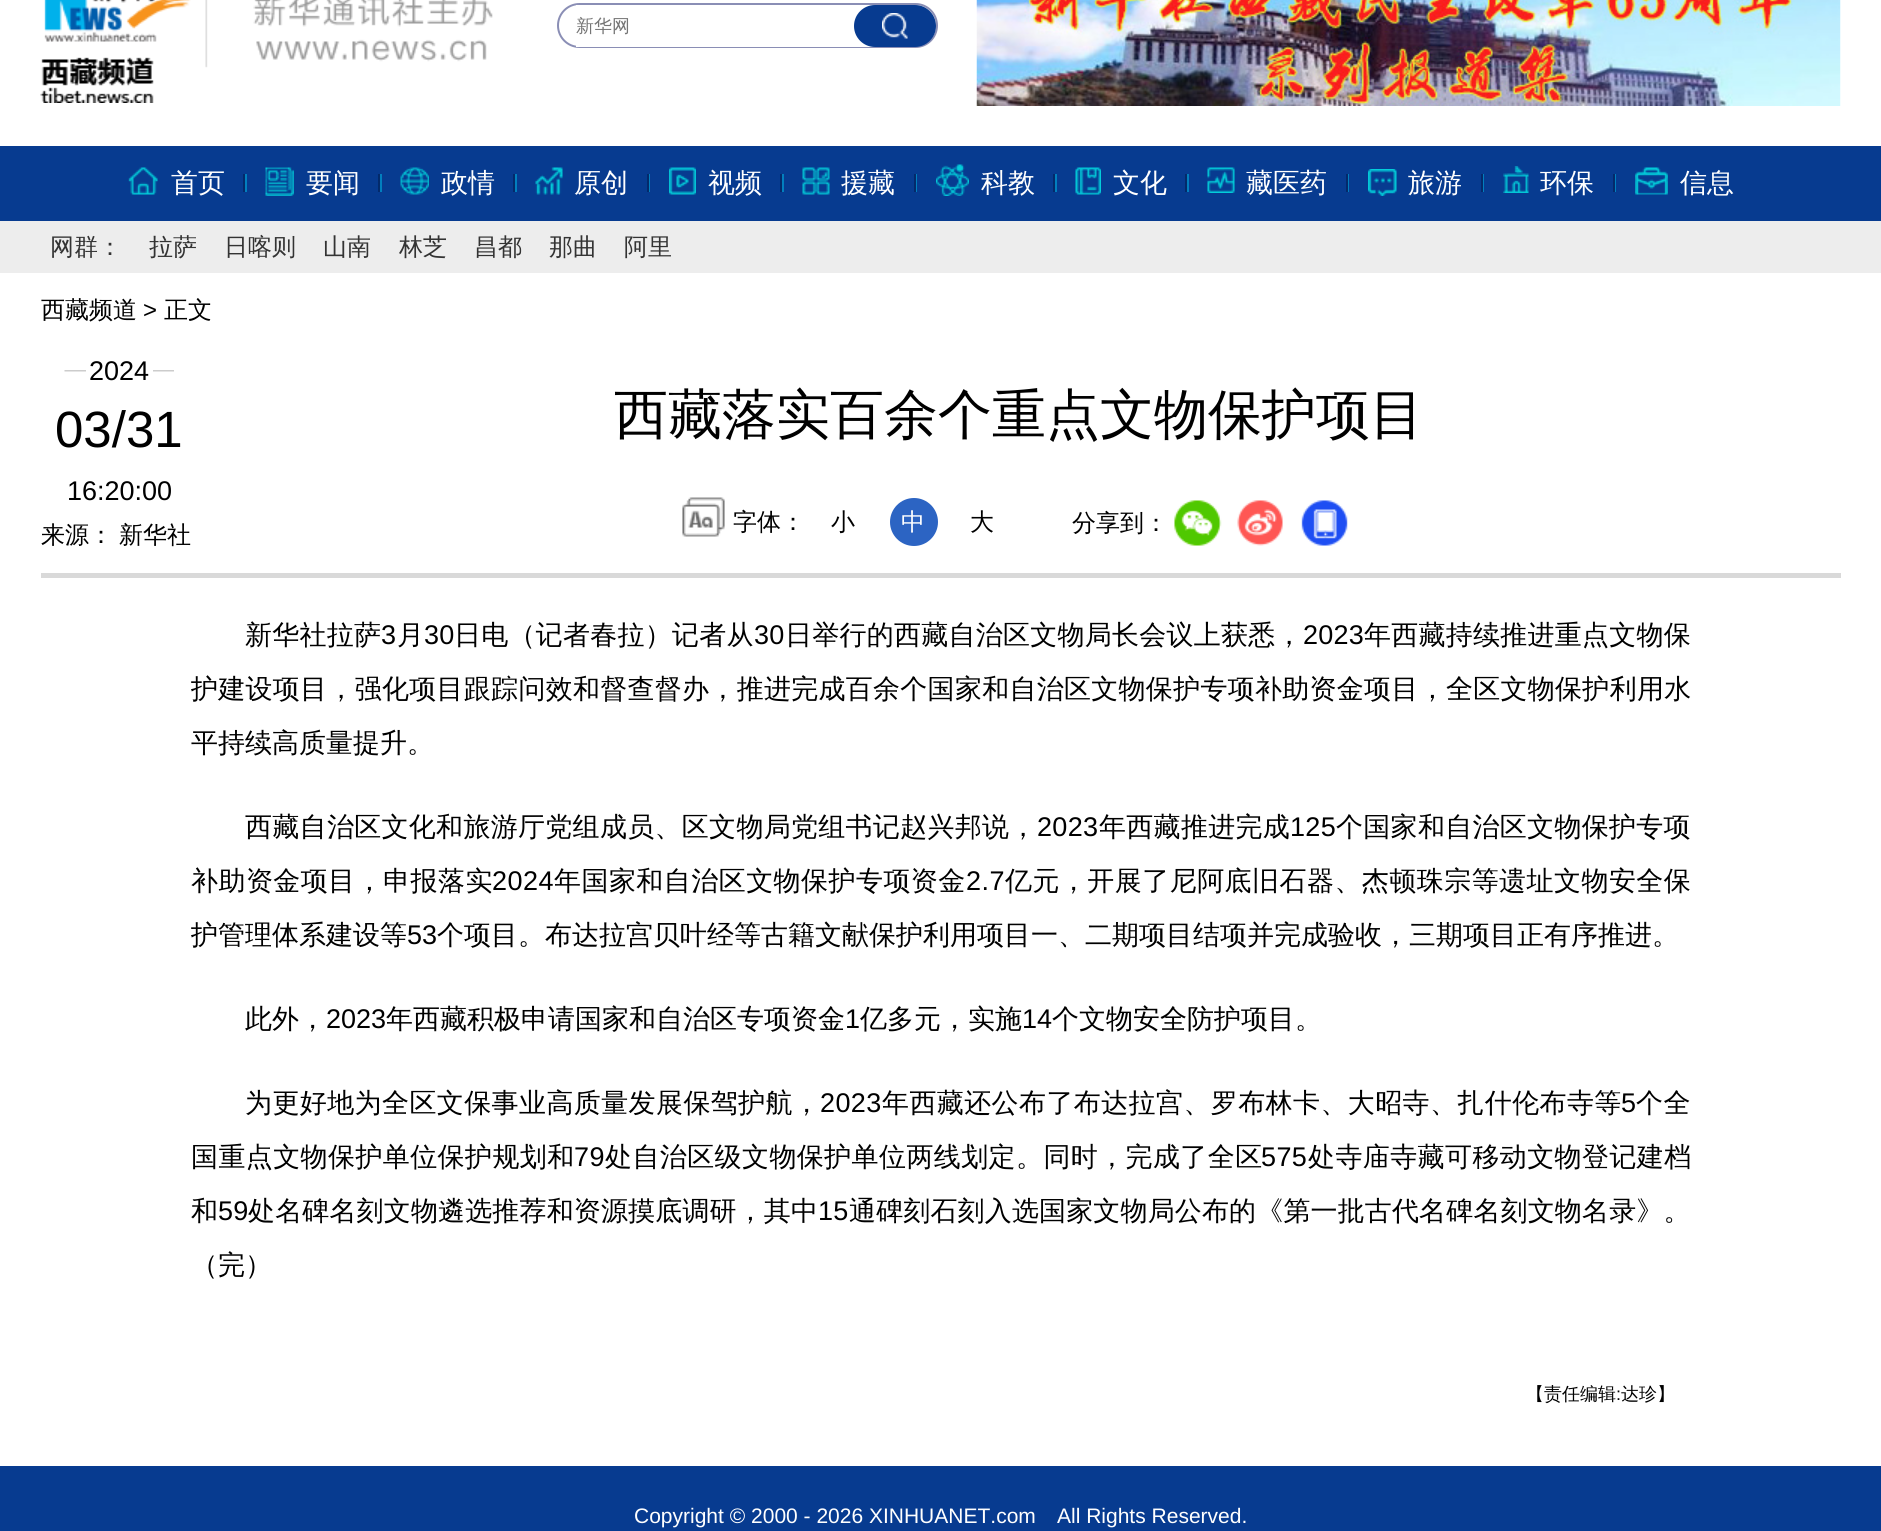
import math
import cairo

surface = cairo.ImageSurface(cairo.FORMAT_RGB24, 1881, 1531)
ctx = cairo.Context(surface)
options = cairo.FontOptions()
options.set_hint_metrics(cairo.HINT_METRICS_OFF)
options.set_hint_style(cairo.HINT_STYLE_NONE)
ctx.set_font_options(options)
ctx.set_miter_limit(4)


def spaced_text(x, y, s, letter, word):
    ctx.move_to(x, y)
    for ch in s:
        ctx.show_text(ch)
        ctx.rel_move_to(letter + word * (ch == ' '), 0)


def round_rect(x, y, w, h, r):
    ctx.new_sub_path()
    for i, (u, v) in enumerate([(x + w - r, y + h - r), (x + r, y + h - r), (x + r, y + r), (x + w - r, y + r)]):
        ctx.arc(u, v, r, i * math.pi / 2, (i + 1) * math.pi / 2)
    ctx.close_path()


def picture(path, x, y, w, h):
    ctx.save()
    ctx.set_source_surface(cairo.ImageSurface.create_from_png(path), x, y)
    ctx.rectangle(x, y, w, h)
    ctx.fill()
    ctx.restore()


ctx.set_source_rgb(1, 1, 1)
ctx.paint()
picture("img1.png", 40, 0, 453, 103)
round_rect(558, 4, 379, 43, 21.5)
ctx.set_source_rgb(0.541, 0.557, 0.71)
ctx.stroke()
ctx.set_source_rgb(1, 1, 1)
ctx.rectangle(576, 5, 299, 42)
ctx.fill()
ctx.select_font_face("WenQuanYi Zen Hei Medium")
ctx.set_font_size(18)
ctx.set_source_rgb(0.459, 0.459, 0.459)
ctx.move_to(576, 32)
ctx.show_text("新华网")
ctx.set_source_rgb(0.031, 0.231, 0.565)
round_rect(854, 5, 82, 42, 21)
ctx.fill()
picture("img2.png", 882, 13, 26, 26)
picture("img3.png", 976, 0, 865, 106)
ctx.set_source_rgb(0.929, 0.929, 0.929)
ctx.rectangle(0, 221, 1881, 52)
ctx.fill()
ctx.set_source_rgb(0.031, 0.231, 0.565)
ctx.rectangle(0, 146, 1881, 75)
ctx.fill()
picture("img4.png", 128, 167, 30, 28)
ctx.set_font_size(27)
ctx.set_source_rgb(1, 1, 1)
ctx.move_to(171, 192)
ctx.show_text("首页")
ctx.set_source_rgb(0.012, 0.165, 0.42)
ctx.rectangle(243, 174, 2, 18)
ctx.fill()
ctx.set_source_rgb(0.008, 0.498, 0.745)
ctx.rectangle(245, 174, 2, 18)
ctx.fill()
picture("img5.png", 265, 167, 29, 29)
ctx.set_source_rgb(1, 1, 1)
ctx.move_to(306, 192)
ctx.show_text("要闻")
ctx.set_source_rgb(0.012, 0.165, 0.42)
ctx.rectangle(378, 174, 2, 18)
ctx.fill()
ctx.set_source_rgb(0.008, 0.498, 0.745)
ctx.rectangle(380, 174, 2, 18)
ctx.fill()
picture("img6.png", 400, 167, 29, 28)
ctx.set_source_rgb(1, 1, 1)
ctx.move_to(441, 192)
ctx.show_text("政情")
ctx.set_source_rgb(0.012, 0.165, 0.42)
ctx.rectangle(513, 174, 2, 18)
ctx.fill()
ctx.set_source_rgb(0.008, 0.498, 0.745)
ctx.rectangle(515, 174, 2, 18)
ctx.fill()
picture("img7.png", 535, 167, 28, 28)
ctx.set_source_rgb(1, 1, 1)
ctx.move_to(574, 192)
ctx.show_text("原创")
ctx.set_source_rgb(0.012, 0.165, 0.42)
ctx.rectangle(647, 174, 2, 18)
ctx.fill()
ctx.set_source_rgb(0.008, 0.498, 0.745)
ctx.rectangle(649, 174, 1, 18)
ctx.fill()
picture("img8.png", 669, 167, 27, 28)
ctx.set_source_rgb(1, 1, 1)
ctx.move_to(708, 192)
ctx.show_text("视频")
ctx.set_source_rgb(0.012, 0.165, 0.42)
ctx.rectangle(780, 174, 2, 18)
ctx.fill()
ctx.set_source_rgb(0.008, 0.498, 0.745)
ctx.rectangle(782, 174, 2, 18)
ctx.fill()
picture("img9.png", 802, 167, 28, 28)
ctx.set_source_rgb(1, 1, 1)
ctx.move_to(841, 192)
ctx.show_text("援藏")
ctx.set_source_rgb(0.012, 0.165, 0.42)
ctx.rectangle(914, 174, 2, 18)
ctx.fill()
ctx.set_source_rgb(0.008, 0.498, 0.745)
ctx.rectangle(916, 174, 1, 18)
ctx.fill()
picture("img10.png", 936, 164, 33, 32)
ctx.set_source_rgb(1, 1, 1)
ctx.move_to(981, 192)
ctx.show_text("科教")
ctx.set_source_rgb(0.012, 0.165, 0.42)
ctx.rectangle(1053, 174, 2, 18)
ctx.fill()
ctx.set_source_rgb(0.008, 0.498, 0.745)
ctx.rectangle(1055, 174, 2, 18)
ctx.fill()
picture("img11.png", 1075, 167, 26, 28)
ctx.set_source_rgb(1, 1, 1)
ctx.move_to(1113, 192)
ctx.show_text("文化")
ctx.set_source_rgb(0.012, 0.165, 0.42)
ctx.rectangle(1185, 174, 2, 18)
ctx.fill()
ctx.set_source_rgb(0.008, 0.498, 0.745)
ctx.rectangle(1187, 174, 2, 18)
ctx.fill()
picture("img12.png", 1207, 167, 28, 26)
ctx.set_source_rgb(1, 1, 1)
ctx.move_to(1246, 192)
ctx.show_text("藏医药")
ctx.set_source_rgb(0.012, 0.165, 0.42)
ctx.rectangle(1346, 174, 2, 18)
ctx.fill()
ctx.set_source_rgb(0.008, 0.498, 0.745)
ctx.rectangle(1348, 174, 1, 18)
ctx.fill()
picture("img13.png", 1368, 169, 29, 27)
ctx.set_source_rgb(1, 1, 1)
ctx.move_to(1408, 192)
ctx.show_text("旅游")
ctx.set_source_rgb(0.012, 0.165, 0.42)
ctx.rectangle(1481, 174, 2, 18)
ctx.fill()
ctx.set_source_rgb(0.008, 0.498, 0.745)
ctx.rectangle(1483, 174, 1, 18)
ctx.fill()
picture("img14.png", 1503, 166, 26, 27)
ctx.set_source_rgb(1, 1, 1)
ctx.move_to(1540, 192)
ctx.show_text("环保")
ctx.set_source_rgb(0.012, 0.165, 0.42)
ctx.rectangle(1613, 174, 2, 18)
ctx.fill()
ctx.set_source_rgb(0.008, 0.498, 0.745)
ctx.rectangle(1615, 174, 1, 18)
ctx.fill()
picture("img15.png", 1635, 167, 33, 28)
ctx.set_source_rgb(1, 1, 1)
ctx.move_to(1680, 192)
ctx.show_text("信息")
ctx.set_font_size(24)
ctx.set_source_rgb(0.2, 0.2, 0.2)
ctx.move_to(50, 255)
ctx.show_text("网群：")
ctx.move_to(149, 255)
ctx.show_text("拉萨")
ctx.move_to(224, 255)
ctx.show_text("日喀则")
ctx.move_to(323, 255)
ctx.show_text("山南")
ctx.move_to(399, 255)
ctx.show_text("林芝")
ctx.move_to(474, 255)
ctx.show_text("昌都")
ctx.move_to(549, 255)
ctx.show_text("那曲")
ctx.move_to(624, 255)
ctx.show_text("阿里")
ctx.set_source_rgb(0.851, 0.851, 0.851)
ctx.rectangle(41, 573, 1800, 5)
ctx.fill()
ctx.set_source_rgb(0, 0, 0)
ctx.move_to(41, 318)
ctx.show_text("西藏频道")
ctx.select_font_face("Liberation Sans")
ctx.move_to(143, 318)
ctx.show_text(">")
ctx.select_font_face("WenQuanYi Zen Hei Medium")
ctx.move_to(164, 318)
ctx.show_text("正文")
picture("img16.png", 64, 370, 110, 2)
ctx.set_source_rgb(1, 1, 1)
ctx.rectangle(86, 370, 67, 2)
ctx.fill()
ctx.select_font_face("Liberation Sans")
ctx.set_font_size(27)
ctx.set_source_rgb(0, 0, 0)
ctx.move_to(89, 380)
ctx.show_text("2024")
ctx.set_font_size(51)
ctx.move_to(55, 447)
ctx.show_text("03/31")
ctx.set_font_size(27)
ctx.move_to(67, 500)
ctx.show_text("16:20:00")
ctx.select_font_face("WenQuanYi Zen Hei Medium")
ctx.set_font_size(54)
ctx.move_to(614, 433)
ctx.show_text("西藏落实百余个重点文物保护项目")
picture("img17.png", 682, 497, 43, 40)
ctx.set_font_size(24)
ctx.move_to(733, 530)
ctx.show_text("字体：")
ctx.move_to(831, 530)
ctx.show_text("小")
ctx.set_source_rgb(0.173, 0.392, 0.765)
ctx.new_path()
ctx.arc(914, 522, 24, 0, 2 * math.pi)
ctx.fill()
ctx.set_source_rgb(1, 1, 1)
ctx.move_to(901, 530)
ctx.show_text("中")
ctx.set_source_rgb(0, 0, 0)
ctx.move_to(970, 530)
ctx.show_text("大")
ctx.move_to(1072, 531)
ctx.show_text("分享到：")
picture("img18.png", 1174, 500, 48, 46)
picture("img19.png", 1237, 500, 46, 46)
picture("img20.png", 1301, 500, 47, 46)
ctx.move_to(41, 543)
ctx.show_text("来源：")
ctx.move_to(119, 543)
ctx.show_text("新华社")
ctx.set_font_size(27)
spaced_text(245, 644, "新华社拉萨", 0.25, 0)
ctx.select_font_face("Liberation Sans")
spaced_text(381, 644, "3", 0.25, 0)
ctx.select_font_face("WenQuanYi Zen Hei Medium")
spaced_text(397, 644, "月", 0.25, 0)
ctx.select_font_face("Liberation Sans")
spaced_text(424, 644, "30", 0.25, 0)
ctx.select_font_face("WenQuanYi Zen Hei Medium")
spaced_text(454, 644, "日电（记者春拉）记者从", 0.25, 0)
ctx.select_font_face("Liberation Sans")
spaced_text(754, 644, "30", 0.25, 0)
ctx.select_font_face("WenQuanYi Zen Hei Medium")
spaced_text(785, 644, "日举行的西藏自治区文物局长会议上获悉，", 0.25, 0)
ctx.select_font_face("Liberation Sans")
spaced_text(1303, 644, "2023", 0.25, 0)
ctx.select_font_face("WenQuanYi Zen Hei Medium")
spaced_text(1364, 644, "年西藏持续推进重点文物保", 0.25, 0)
spaced_text(191, 698, "护建设项目，强化项目跟踪问效和督查督办，推进完成百余个国家和自治区文物保护专项补助资金项目，全区文物保护利用水", 0.28, 0)
ctx.move_to(191, 752)
ctx.show_text("平持续高质量提升。")
spaced_text(245, 836, "西藏自治区文化和旅游厅党组成员、区文物局党组书记赵兴邦说，", 0.3, 0)
ctx.select_font_face("Liberation Sans")
spaced_text(1037, 836, "2023", 0.3, 0)
ctx.select_font_face("WenQuanYi Zen Hei Medium")
spaced_text(1099, 836, "年西藏推进完成", 0.3, 0)
ctx.select_font_face("Liberation Sans")
spaced_text(1290, 836, "125", 0.3, 0)
ctx.select_font_face("WenQuanYi Zen Hei Medium")
spaced_text(1336, 836, "个国家和自治区文物保护专项", 0.3, 0)
spaced_text(191, 890, "补助资金项目，申报落实", 0.45, 0)
ctx.select_font_face("Liberation Sans")
spaced_text(492, 890, "2024", 0.45, 0)
ctx.select_font_face("WenQuanYi Zen Hei Medium")
spaced_text(554, 890, "年国家和自治区文物保护专项资金", 0.45, 0)
ctx.select_font_face("Liberation Sans")
spaced_text(966, 890, "2.7", 0.45, 0)
ctx.select_font_face("WenQuanYi Zen Hei Medium")
spaced_text(1005, 890, "亿元，开展了尼阿底旧石器、杰顿珠宗等遗址文物安全保", 0.45, 0)
ctx.move_to(191, 944)
ctx.show_text("护管理体系建设等")
ctx.select_font_face("Liberation Sans")
ctx.move_to(407, 944)
ctx.show_text("53")
ctx.select_font_face("WenQuanYi Zen Hei Medium")
ctx.move_to(437, 944)
ctx.show_text("个项目。布达拉宫贝叶经等古籍文献保护利用项目一、二期项目结项并完成验收，三期项目正有序推进。")
ctx.move_to(245, 1028)
ctx.show_text("此外，")
ctx.select_font_face("Liberation Sans")
ctx.move_to(326, 1028)
ctx.show_text("2023")
ctx.select_font_face("WenQuanYi Zen Hei Medium")
ctx.move_to(386, 1028)
ctx.show_text("年西藏积极申请国家和自治区专项资金")
ctx.select_font_face("Liberation Sans")
ctx.move_to(845, 1028)
ctx.show_text("1")
ctx.select_font_face("WenQuanYi Zen Hei Medium")
ctx.move_to(860, 1028)
ctx.show_text("亿多元，实施")
ctx.select_font_face("Liberation Sans")
ctx.move_to(1022, 1028)
ctx.show_text("14")
ctx.select_font_face("WenQuanYi Zen Hei Medium")
ctx.move_to(1052, 1028)
ctx.show_text("个文物安全防护项目。")
spaced_text(245, 1112, "为更好地为全区文保事业高质量发展保驾护航，", 0.4, 0)
ctx.select_font_face("Liberation Sans")
spaced_text(820, 1112, "2023", 0.4, 0)
ctx.select_font_face("WenQuanYi Zen Hei Medium")
spaced_text(882, 1112, "年西藏还公布了布达拉宫、罗布林卡、大昭寺、扎什伦布寺等", 0.4, 0)
ctx.select_font_face("Liberation Sans")
spaced_text(1621, 1112, "5", 0.4, 0)
ctx.select_font_face("WenQuanYi Zen Hei Medium")
spaced_text(1636, 1112, "个全", 0.4, 0)
spaced_text(191, 1166, "国重点文物保护单位保护规划和", 0.4, 0)
ctx.select_font_face("Liberation Sans")
spaced_text(574, 1166, "79", 0.4, 0)
ctx.select_font_face("WenQuanYi Zen Hei Medium")
spaced_text(605, 1166, "处自治区级文物保护单位两线划定。同时，完成了全区", 0.4, 0)
ctx.select_font_face("Liberation Sans")
spaced_text(1261, 1166, "575", 0.4, 0)
ctx.select_font_face("WenQuanYi Zen Hei Medium")
spaced_text(1308, 1166, "处寺庙寺藏可移动文物登记建档", 0.4, 0)
spaced_text(191, 1220, "和", 0.15, 0)
ctx.select_font_face("Liberation Sans")
spaced_text(218, 1220, "59", 0.15, 0)
ctx.select_font_face("WenQuanYi Zen Hei Medium")
spaced_text(248, 1220, "处名碑名刻文物遴选推荐和资源摸底调研，其中", 0.15, 0)
ctx.select_font_face("Liberation Sans")
spaced_text(818, 1220, "15", 0.15, 0)
ctx.select_font_face("WenQuanYi Zen Hei Medium")
spaced_text(849, 1220, "通碑刻石刻入选国家文物局公布的《第一批古代名碑名刻文物名录》。", 0.15, 0)
ctx.move_to(191, 1274)
ctx.show_text("（完）")
ctx.set_font_size(18)
ctx.move_to(1526, 1400)
ctx.show_text("【责任编辑")
ctx.select_font_face("Liberation Sans")
ctx.move_to(1616, 1400)
ctx.show_text(":")
ctx.select_font_face("WenQuanYi Zen Hei Medium")
ctx.move_to(1621, 1400)
ctx.show_text("达珍】")
ctx.set_source_rgb(0.031, 0.231, 0.565)
ctx.rectangle(0, 1466, 1881, 65)
ctx.fill()
ctx.select_font_face("Liberation Sans")
ctx.set_font_size(21)
ctx.set_source_rgb(1, 1, 1)
ctx.move_to(634, 1523)
ctx.show_text("Copyright © 2000 - 2026 XINHUANET.com")
ctx.move_to(1057, 1523)
ctx.show_text("All Rights Reserved.")
surface.write_to_png("page.png")
